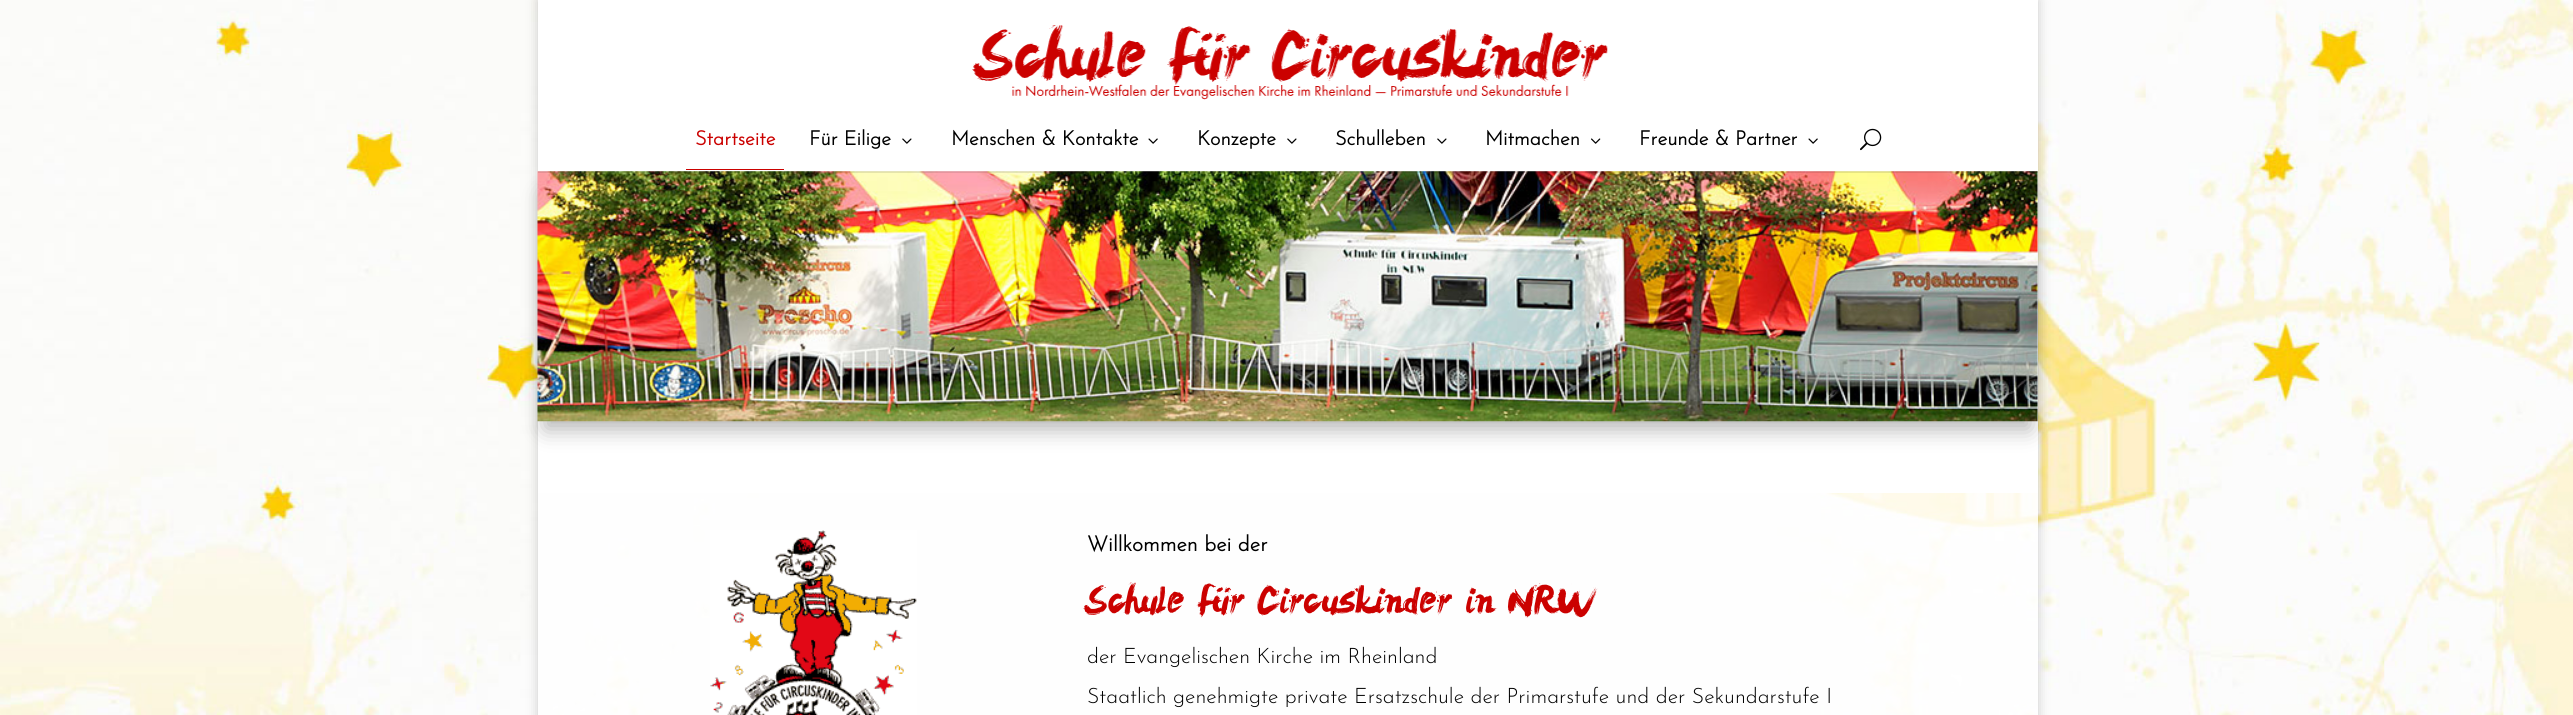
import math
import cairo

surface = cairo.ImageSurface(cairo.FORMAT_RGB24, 2573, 715)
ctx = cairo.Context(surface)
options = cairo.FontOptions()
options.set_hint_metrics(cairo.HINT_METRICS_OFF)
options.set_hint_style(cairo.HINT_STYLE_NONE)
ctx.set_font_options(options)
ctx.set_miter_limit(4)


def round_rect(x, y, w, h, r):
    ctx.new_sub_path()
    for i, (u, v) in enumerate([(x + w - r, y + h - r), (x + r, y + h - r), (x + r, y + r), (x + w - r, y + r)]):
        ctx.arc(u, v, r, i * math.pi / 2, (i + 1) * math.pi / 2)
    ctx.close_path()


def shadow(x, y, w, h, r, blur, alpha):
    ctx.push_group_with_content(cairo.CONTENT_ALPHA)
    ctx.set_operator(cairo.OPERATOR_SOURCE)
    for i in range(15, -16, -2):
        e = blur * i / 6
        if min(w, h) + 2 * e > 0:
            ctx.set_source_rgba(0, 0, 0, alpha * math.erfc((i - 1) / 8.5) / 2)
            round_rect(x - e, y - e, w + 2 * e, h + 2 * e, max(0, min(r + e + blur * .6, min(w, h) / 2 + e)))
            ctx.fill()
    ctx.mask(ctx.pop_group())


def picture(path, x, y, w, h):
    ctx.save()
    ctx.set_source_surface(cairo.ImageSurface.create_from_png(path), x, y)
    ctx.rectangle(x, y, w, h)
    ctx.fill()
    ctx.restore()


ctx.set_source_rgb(1, 1, 1)
ctx.paint()
picture("img1.png", 0, 0, 2573, 715)
ctx.save()
ctx.set_fill_rule(cairo.FILL_RULE_EVEN_ODD)
ctx.new_path()
ctx.move_to(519, 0)
ctx.line_to(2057, 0)
ctx.line_to(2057, 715)
ctx.line_to(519, 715)
ctx.close_path()
ctx.move_to(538, 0)
ctx.line_to(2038, 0)
ctx.line_to(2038, 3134)
ctx.line_to(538, 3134)
ctx.close_path()
ctx.clip()
ctx.set_source_rgb(0, 0, 0)
shadow(538, 0, 1500, 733, 0, 6, 0.2)
ctx.restore()
ctx.set_source_rgb(1, 1, 1)
ctx.rectangle(538, 171, 1500, 322)
ctx.fill()
ctx.set_source_rgb(0, 0, 0)
shadow(545, 194, 1485, 235, 0, 11, 0.3)
picture("img7.png", 537, 171, 1501, 251)
ctx.set_source_rgba(0, 0, 0, 0.1)
ctx.new_path()
ctx.move_to(538, 171)
ctx.line_to(538, 173)
ctx.line_to(2038, 173)
ctx.line_to(2038, 1)
ctx.line_to(2038, 171)
ctx.close_path()
ctx.fill()
ctx.set_source_rgb(1, 1, 1)
ctx.rectangle(538, 0, 1500, 171)
ctx.fill()
picture("img2.png", 972, 25, 636, 75)
ctx.select_font_face("Josefin Sans", cairo.FONT_SLANT_NORMAL, cairo.FONT_WEIGHT_BOLD)
ctx.set_font_size(20)
ctx.set_source_rgb(0.796, 0.004, 0)
ctx.move_to(695, 145)
ctx.show_text("Startseite")
ctx.rectangle(686, 169, 98, 1)
ctx.fill()
ctx.set_source_rgb(0, 0, 0)
ctx.move_to(809, 145)
ctx.show_text("Für Eilige")
picture("img3.png", 902, 138, 10, 6)
ctx.move_to(951, 145)
ctx.show_text("Menschen & Kontakte")
picture("img4.png", 1148, 138, 10, 6)
ctx.move_to(1197, 145)
ctx.show_text("Konzepte")
picture("img3.png", 1287, 138, 10, 6)
ctx.move_to(1335, 145)
ctx.show_text("Schulleben")
picture("img3.png", 1437, 138, 10, 6)
ctx.move_to(1485, 145)
ctx.show_text("Mitmachen")
picture("img5.png", 1591, 138, 10, 6)
ctx.move_to(1639, 145)
ctx.show_text("Freunde & Partner")
picture("img4.png", 1808, 138, 10, 6)
picture("img6.png", 1860, 128, 22, 23)
ctx.set_source_rgba(1, 1, 1, 0.8)
ctx.rectangle(538, 493, 1500, 222)
ctx.fill()
picture("img8.png", 710, 530, 207, 185)
ctx.set_font_size(21.25)
ctx.set_source_rgb(0, 0, 0)
ctx.move_to(1087, 551)
ctx.show_text("Willkommen bei der")
ctx.select_font_face("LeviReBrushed")
ctx.set_font_size(37.5)
ctx.set_source_rgb(0.796, 0.004, 0)
ctx.move_to(1087, 612)
ctx.show_text("Schule für Circuskinder in NRW")
ctx.select_font_face("Josefin Sans Light")
ctx.set_font_size(21.25)
ctx.set_source_rgb(0, 0, 0)
ctx.move_to(1087, 663)
ctx.show_text("der Evangelischen Kirche im Rheinland")
ctx.move_to(1087, 703)
ctx.show_text("Staatlich genehmigte private Ersatzschule der Primarstufe und der Sekundarstufe I")
surface.write_to_png("page.png")
